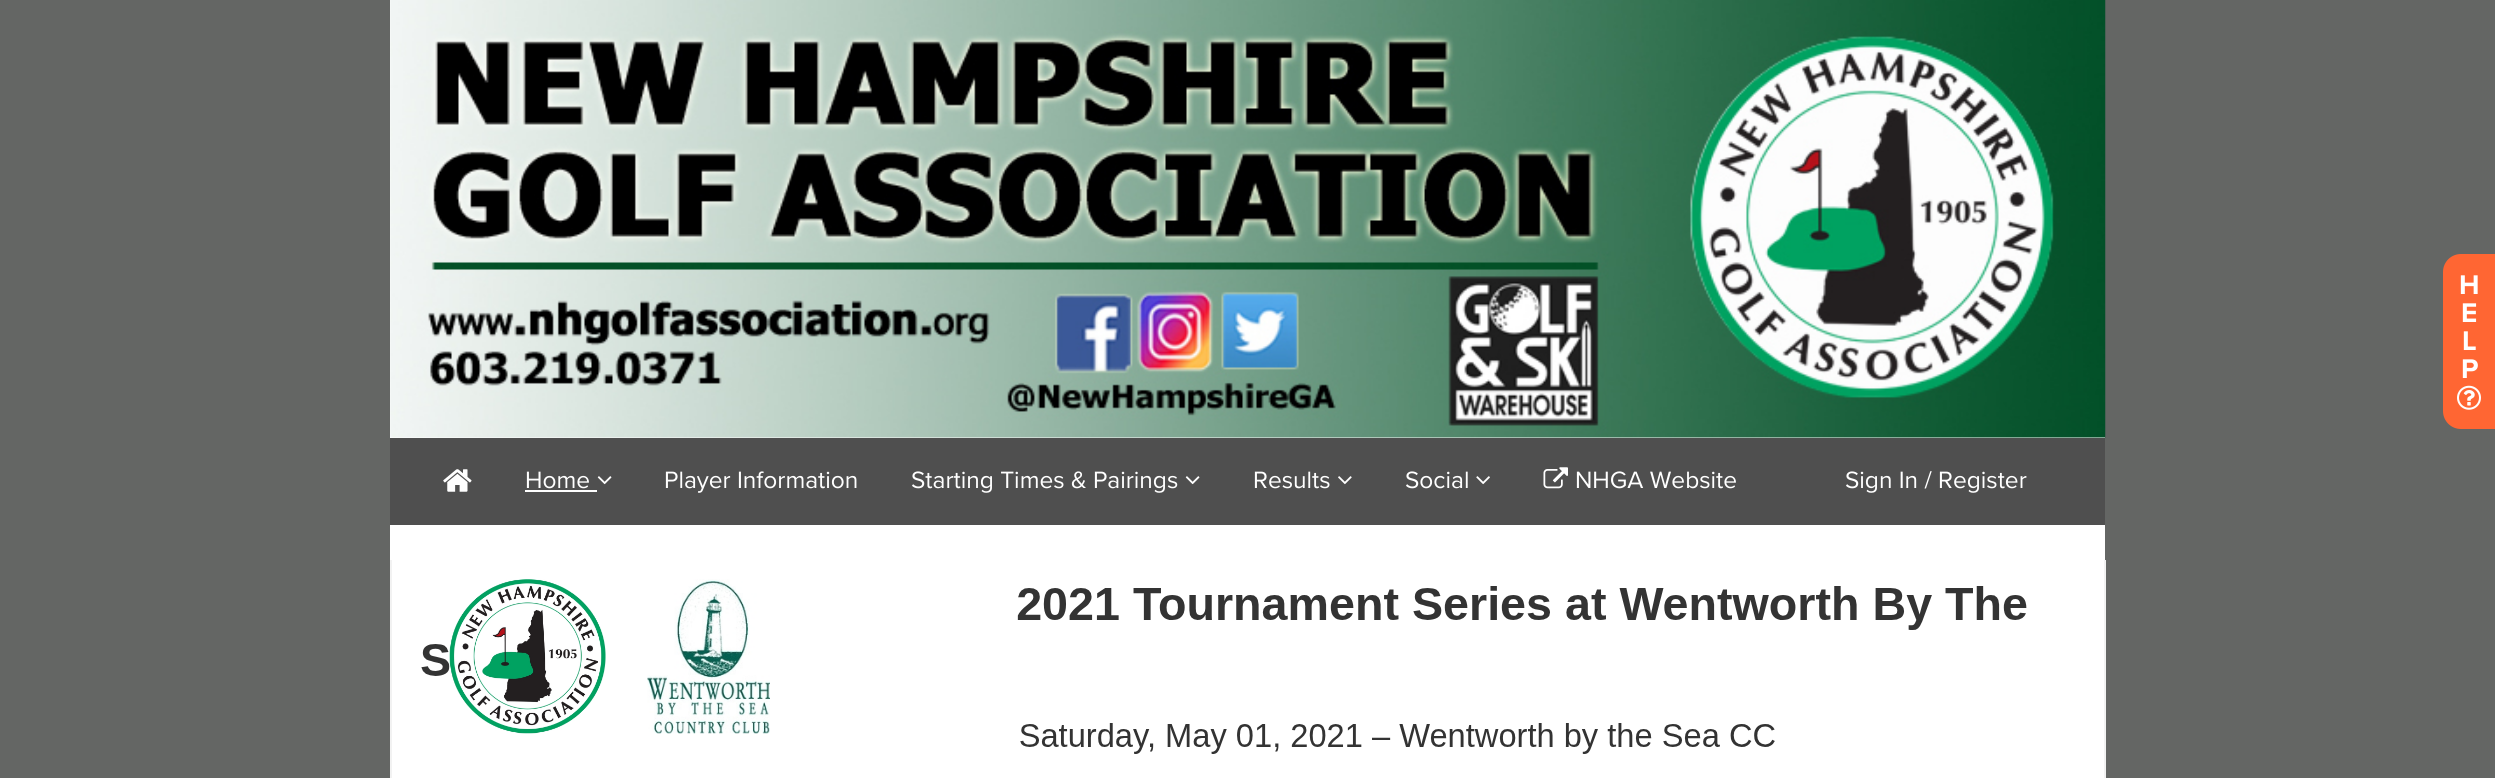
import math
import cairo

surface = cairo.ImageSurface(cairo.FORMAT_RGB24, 2495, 778)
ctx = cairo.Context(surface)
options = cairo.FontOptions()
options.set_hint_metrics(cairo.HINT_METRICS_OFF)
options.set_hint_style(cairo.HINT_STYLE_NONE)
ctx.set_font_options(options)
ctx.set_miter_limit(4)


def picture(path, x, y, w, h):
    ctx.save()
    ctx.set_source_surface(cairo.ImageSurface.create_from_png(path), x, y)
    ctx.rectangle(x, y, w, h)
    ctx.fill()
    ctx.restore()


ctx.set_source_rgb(0.392, 0.4, 0.392)
ctx.paint()
ctx.set_source_rgb(1, 0.4, 0.2)
ctx.new_path()
ctx.move_to(2461, 254)
ctx.line_to(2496, 254)
ctx.line_to(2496, 429)
ctx.line_to(2461, 429)
ctx.curve_to(2451, 429, 2443, 421, 2443, 411)
ctx.line_to(2443, 272)
ctx.curve_to(2443, 262, 2451, 254, 2461, 254)
ctx.close_path()
ctx.fill()
ctx.select_font_face("Proxima Nova", cairo.FONT_SLANT_NORMAL, cairo.FONT_WEIGHT_BOLD)
ctx.set_font_size(28)
ctx.set_source_rgb(1, 1, 1)
ctx.move_to(2459, 294)
ctx.show_text("H")
ctx.move_to(2461, 322)
ctx.show_text("E")
ctx.move_to(2462, 350)
ctx.show_text("L")
ctx.move_to(2461, 378)
ctx.show_text("P")
picture("img1.png", 2457, 385, 24, 25)
ctx.rectangle(390, 0, 1715, 778)
ctx.fill()
picture("img2.png", 390, 0, 1716, 438)
ctx.set_source_rgb(0.31, 0.31, 0.31)
ctx.rectangle(390, 438, 1715, 87)
ctx.fill()
picture("img3.png", 443, 469, 29, 23)
ctx.select_font_face("Proxima Nova")
ctx.set_font_size(24.5)
ctx.set_source_rgb(1, 1, 1)
ctx.move_to(525, 488)
ctx.show_text("Home")
ctx.rectangle(525, 490, 72, 2)
ctx.fill()
picture("img4.png", 597, 476, 15, 9)
ctx.move_to(664, 488)
ctx.show_text("Player Information")
ctx.move_to(911, 488)
ctx.show_text("Starting Times & Pairings")
picture("img4.png", 1185, 476, 15, 9)
ctx.move_to(1253, 488)
ctx.show_text("Results")
picture("img5.png", 1338, 476, 14, 9)
ctx.move_to(1405, 488)
ctx.show_text("Social")
picture("img6.png", 1476, 476, 14, 9)
picture("img7.png", 1543, 467, 25, 22)
ctx.move_to(1575, 488)
ctx.show_text("NHGA Website")
ctx.move_to(1845, 488)
ctx.show_text("Sign In / Register")
ctx.set_source_rgb(0.949, 0.949, 0.949)
ctx.rectangle(2104, 560, 2, 218)
ctx.fill()
ctx.rectangle(390, 560, 2, 218)
ctx.fill()
picture("img8.png", 421, 579, 1606, 175)
surface.write_to_png("page.png")
